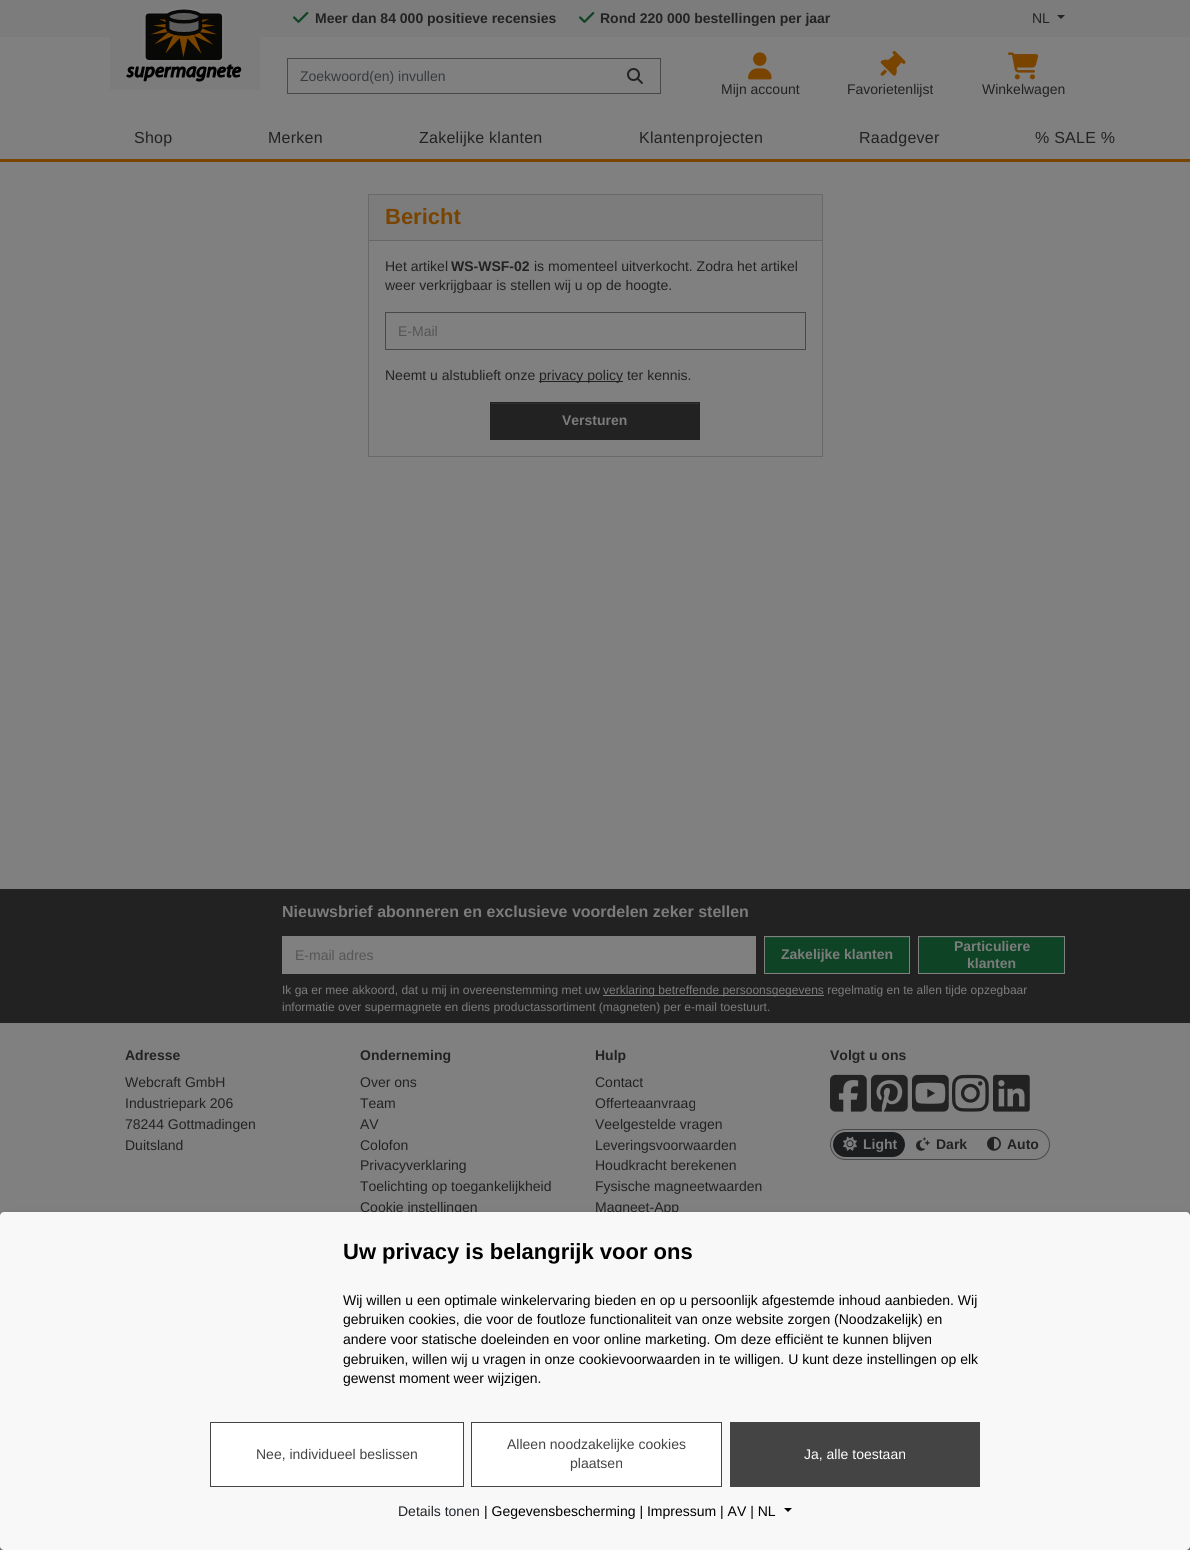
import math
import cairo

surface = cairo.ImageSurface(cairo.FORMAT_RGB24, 1190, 1550)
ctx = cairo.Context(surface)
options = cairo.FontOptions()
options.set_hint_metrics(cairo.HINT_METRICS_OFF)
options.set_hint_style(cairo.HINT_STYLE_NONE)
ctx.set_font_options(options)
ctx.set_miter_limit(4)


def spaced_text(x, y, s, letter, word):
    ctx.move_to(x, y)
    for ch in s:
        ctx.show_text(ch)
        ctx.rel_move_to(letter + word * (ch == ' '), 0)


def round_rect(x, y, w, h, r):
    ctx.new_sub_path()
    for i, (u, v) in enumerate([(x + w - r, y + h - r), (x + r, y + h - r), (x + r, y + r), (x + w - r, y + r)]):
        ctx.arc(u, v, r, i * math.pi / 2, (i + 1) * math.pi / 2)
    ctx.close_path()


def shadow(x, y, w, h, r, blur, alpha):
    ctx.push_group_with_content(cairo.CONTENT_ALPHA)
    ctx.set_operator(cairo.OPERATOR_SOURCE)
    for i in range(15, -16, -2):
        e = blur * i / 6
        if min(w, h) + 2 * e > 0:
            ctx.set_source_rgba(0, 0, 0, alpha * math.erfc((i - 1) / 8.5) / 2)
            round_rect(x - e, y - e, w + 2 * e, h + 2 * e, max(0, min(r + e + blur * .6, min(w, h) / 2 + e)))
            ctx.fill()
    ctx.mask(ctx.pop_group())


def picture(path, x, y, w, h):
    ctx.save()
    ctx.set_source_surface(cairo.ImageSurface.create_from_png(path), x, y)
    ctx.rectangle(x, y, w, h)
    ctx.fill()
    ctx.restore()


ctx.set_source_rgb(0.502, 0.502, 0.502)
ctx.paint()
ctx.set_source_rgb(0.486, 0.486, 0.486)
ctx.rectangle(0, 0, 1190, 37)
ctx.fill()
ctx.rectangle(110, 37, 150, 53)
ctx.fill()
picture("img1.png", 126, 8, 116, 74)
picture("img2.png", 293, 12, 16, 11)
ctx.select_font_face("Liberation Sans", cairo.FONT_SLANT_NORMAL, cairo.FONT_WEIGHT_BOLD)
ctx.set_font_size(14)
ctx.set_source_rgb(0.133, 0.133, 0.133)
ctx.move_to(315, 23)
ctx.show_text("Meer dan 84 000 positieve recensies")
picture("img2.png", 579, 12, 16, 11)
ctx.move_to(600, 23)
ctx.show_text("Rond 220 000 bestellingen per jaar")
ctx.select_font_face("Liberation Sans")
ctx.move_to(1032, 23)
ctx.show_text("NL")
ctx.new_path()
ctx.move_to(1057, 15)
ctx.line_to(1065, 15)
ctx.line_to(1061, 19)
ctx.close_path()
ctx.fill()
ctx.set_source_rgb(0.282, 0.282, 0.282)
ctx.rectangle(287, 58, 374, 1)
ctx.fill()
ctx.rectangle(287, 93, 325, 1)
ctx.fill()
ctx.rectangle(287, 58, 1, 36)
ctx.fill()
ctx.set_source_rgb(0.212, 0.231, 0.247)
ctx.move_to(300, 81)
ctx.show_text("Zoekwoord(en) invullen")
ctx.set_source_rgb(0.282, 0.282, 0.282)
ctx.rectangle(660, 58, 1, 36)
ctx.fill()
ctx.rectangle(611, 93, 50, 1)
ctx.fill()
picture("img3.png", 627, 68, 16, 16)
picture("img4.png", 748, 52, 24, 28)
ctx.set_source_rgb(0.133, 0.133, 0.133)
ctx.move_to(721, 94)
ctx.show_text("Mijn account")
picture("img5.png", 880, 50, 26, 26)
ctx.move_to(847, 94)
ctx.show_text("Favorietenlijst")
picture("img6.png", 1008, 52, 31, 28)
ctx.move_to(982, 94)
ctx.show_text("Winkelwagen")
ctx.set_source_rgb(0.475, 0.267, 0)
ctx.rectangle(0, 159, 1190, 3)
ctx.fill()
ctx.set_font_size(16)
ctx.set_source_rgb(0.133, 0.133, 0.133)
spaced_text(134, 143, "Shop", 0.25, 0)
spaced_text(268, 143, "Merken", 0.25, 0)
spaced_text(419, 143, "Zakelijke klanten", 0.25, 0)
spaced_text(639, 143, "Klantenprojecten", 0.25, 0)
spaced_text(859, 143, "Raadgever", 0.25, 0)
spaced_text(1035, 143, "% SALE %", 0.25, 0)
ctx.rectangle(368.5, 194.5, 454, 262)
ctx.set_source_rgb(0.412, 0.412, 0.412)
ctx.set_line_width(1)
ctx.stroke()
ctx.set_source_rgb(0.486, 0.486, 0.49)
ctx.rectangle(369, 195, 453, 45)
ctx.fill()
ctx.set_source_rgb(0.4, 0.4, 0.404)
ctx.rectangle(369, 240, 453, 1)
ctx.fill()
ctx.select_font_face("Liberation Sans", cairo.FONT_SLANT_NORMAL, cairo.FONT_WEIGHT_BOLD)
ctx.set_font_size(22)
ctx.set_source_rgb(0.475, 0.267, 0)
ctx.move_to(385, 224)
ctx.show_text("Bericht")
ctx.select_font_face("Liberation Sans")
ctx.set_font_size(14)
ctx.set_source_rgb(0.133, 0.133, 0.133)
ctx.move_to(385, 271)
ctx.show_text("Het artikel")
ctx.select_font_face("Liberation Sans", cairo.FONT_SLANT_NORMAL, cairo.FONT_WEIGHT_BOLD)
ctx.move_to(451, 271)
ctx.show_text("WS-WSF-02")
ctx.select_font_face("Liberation Sans")
ctx.move_to(534, 271)
ctx.show_text("is momenteel uitverkocht. Zodra het artikel")
ctx.move_to(385, 290)
ctx.show_text("weer verkrijgbaar is stellen wij u op de hoogte.")
ctx.rectangle(385.5, 312.5, 420, 37)
ctx.set_source_rgb(0.282, 0.282, 0.282)
ctx.stroke()
ctx.set_source_rgb(0.333, 0.333, 0.333)
ctx.move_to(398, 336)
ctx.show_text("E-Mail")
ctx.set_source_rgb(0.133, 0.133, 0.133)
ctx.move_to(385, 380)
ctx.show_text("Neemt u alstublieft onze")
ctx.rectangle(539, 381, 84, 1)
ctx.fill()
ctx.move_to(539, 380)
ctx.show_text("privacy policy ter kennis.")
ctx.rectangle(490, 402, 210, 38)
ctx.fill()
ctx.set_source_rgb(0.188, 0.188, 0.188)
ctx.rectangle(491, 403, 208, 1)
ctx.fill()
ctx.select_font_face("Liberation Sans", cairo.FONT_SLANT_NORMAL, cairo.FONT_WEIGHT_BOLD)
ctx.set_source_rgb(0.486, 0.486, 0.486)
ctx.move_to(562, 425)
ctx.show_text("Versturen")
ctx.set_source_rgb(0.133, 0.133, 0.133)
ctx.rectangle(0, 889, 1190, 134)
ctx.fill()
ctx.set_font_size(16)
ctx.set_source_rgb(0.486, 0.486, 0.486)
ctx.move_to(282, 917)
ctx.show_text("Nieuwsbrief abonneren en exclusieve voordelen zeker stellen")
ctx.set_source_rgb(0.502, 0.502, 0.502)
ctx.rectangle(282.5, 936.5, 473, 37)
ctx.fill_preserve()
ctx.stroke()
ctx.select_font_face("Liberation Sans")
ctx.set_font_size(14)
ctx.set_source_rgb(0.333, 0.333, 0.333)
ctx.move_to(295, 960)
ctx.show_text("E-mail adres")
ctx.set_source_rgb(0.055, 0.267, 0.145)
ctx.rectangle(765, 938, 144, 35)
ctx.fill()
ctx.set_source_rgb(0.122, 0.302, 0.196)
ctx.rectangle(765, 937, 144, 1)
ctx.fill()
ctx.rectangle(764.5, 936.5, 145, 37)
ctx.set_source_rgb(0.502, 0.502, 0.502)
ctx.stroke()
ctx.select_font_face("Liberation Sans", cairo.FONT_SLANT_NORMAL, cairo.FONT_WEIGHT_BOLD)
ctx.set_source_rgb(0.486, 0.486, 0.486)
ctx.move_to(781, 959)
ctx.show_text("Zakelijke klanten")
ctx.set_source_rgb(0.055, 0.267, 0.145)
ctx.rectangle(919, 938, 145, 35)
ctx.fill()
ctx.set_source_rgb(0.122, 0.302, 0.196)
ctx.rectangle(919, 937, 145, 1)
ctx.fill()
ctx.rectangle(918.5, 936.5, 146, 37)
ctx.set_source_rgb(0.502, 0.502, 0.502)
ctx.stroke()
ctx.set_source_rgb(0.486, 0.486, 0.486)
ctx.move_to(954, 951)
ctx.show_text("Particuliere")
ctx.move_to(967, 968)
ctx.show_text("klanten")
ctx.select_font_face("Liberation Sans")
ctx.set_font_size(12)
ctx.move_to(282, 994)
ctx.show_text("Ik ga er mee akkoord, dat u mij in overeenstemming met uw")
ctx.set_source_rgb(0.502, 0.502, 0.502)
ctx.rectangle(603, 995, 221, 1)
ctx.fill()
ctx.set_source_rgb(0.486, 0.486, 0.486)
ctx.move_to(603, 994)
ctx.show_text("verklaring betreffende persoonsgegevens regelmatig en te allen tijde opzegbaar")
ctx.move_to(282, 1011)
ctx.show_text("informatie over supermagnete en diens productassortiment (magneten) per e-mail toestuurt.")
ctx.select_font_face("Liberation Sans", cairo.FONT_SLANT_NORMAL, cairo.FONT_WEIGHT_BOLD)
ctx.set_font_size(14)
ctx.set_source_rgb(0.133, 0.133, 0.133)
ctx.move_to(125, 1060)
ctx.show_text("Adresse")
ctx.select_font_face("Liberation Sans")
ctx.move_to(125, 1087)
ctx.show_text("Webcraft GmbH")
ctx.move_to(125, 1108)
ctx.show_text("Industriepark 206")
ctx.move_to(125, 1129)
ctx.show_text("78244 Gottmadingen")
ctx.move_to(125, 1150)
ctx.show_text("Duitsland")
ctx.select_font_face("Liberation Sans", cairo.FONT_SLANT_NORMAL, cairo.FONT_WEIGHT_BOLD)
ctx.move_to(360, 1060)
ctx.show_text("Onderneming")
ctx.select_font_face("Liberation Sans")
ctx.move_to(360, 1087)
ctx.show_text("Over ons")
ctx.move_to(360, 1108)
ctx.show_text("Team")
ctx.move_to(360, 1129)
ctx.show_text("AV")
ctx.move_to(360, 1150)
ctx.show_text("Colofon")
ctx.move_to(360, 1170)
ctx.show_text("Privacyverklaring")
ctx.move_to(360, 1191)
ctx.show_text("Toelichting op toegankelijkheid")
ctx.move_to(360, 1212)
ctx.show_text("Cookie instellingen")
ctx.select_font_face("Liberation Sans", cairo.FONT_SLANT_NORMAL, cairo.FONT_WEIGHT_BOLD)
ctx.move_to(595, 1060)
ctx.show_text("Hulp")
ctx.select_font_face("Liberation Sans")
ctx.move_to(595, 1087)
ctx.show_text("Contact")
ctx.move_to(595, 1108)
ctx.show_text("Offerteaanvraag")
ctx.move_to(595, 1129)
ctx.show_text("Veelgestelde vragen")
ctx.move_to(595, 1150)
ctx.show_text("Leveringsvoorwaarden")
ctx.move_to(595, 1170)
ctx.show_text("Houdkracht berekenen")
ctx.move_to(595, 1191)
ctx.show_text("Fysische magneetwaarden")
ctx.move_to(595, 1212)
ctx.show_text("Magneet-App")
ctx.select_font_face("Liberation Sans", cairo.FONT_SLANT_NORMAL, cairo.FONT_WEIGHT_BOLD)
ctx.move_to(830, 1060)
ctx.show_text("Volgt u ons")
picture("img7.png", 830, 1074, 37, 38)
picture("img8.png", 871, 1074, 37, 38)
picture("img9.png", 912, 1074, 37, 38)
picture("img10.png", 952, 1074, 37, 38)
picture("img11.png", 993, 1074, 37, 38)
round_rect(830.5, 1129.5, 219, 30, 15)
ctx.set_source_rgb(0.282, 0.282, 0.282)
ctx.stroke()
ctx.set_source_rgb(0.106, 0.11, 0.114)
round_rect(833, 1132, 72, 25, 12.5)
ctx.fill()
picture("img12.png", 843, 1136, 14, 15)
ctx.set_source_rgb(0.486, 0.486, 0.486)
ctx.move_to(863, 1149)
ctx.show_text("Light")
picture("img13.png", 916, 1137, 14, 14)
ctx.set_source_rgb(0.133, 0.133, 0.133)
ctx.move_to(936, 1149)
ctx.show_text("Dark")
picture("img14.png", 987, 1136, 14, 15)
ctx.move_to(1007, 1149)
ctx.show_text("Auto")
ctx.set_source_rgb(0, 0, 0)
shadow(5, 1217, 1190, 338, 4, 5, 0.19)
shadow(0, 1216, 1190, 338, 4, 3, 0.2)
ctx.set_source_rgb(0.969, 0.969, 0.969)
round_rect(0, 1212, 1190, 338, 4)
ctx.fill()
ctx.set_font_size(22)
ctx.set_source_rgb(0, 0, 0)
ctx.move_to(343, 1259)
ctx.show_text("Uw privacy is belangrijk voor ons")
ctx.select_font_face("Liberation Sans")
ctx.set_font_size(14)
ctx.move_to(343, 1305)
ctx.show_text("Wij willen u een optimale winkelervaring bieden en op u persoonlijk afgestemde inhoud aanbieden. Wij")
ctx.move_to(343, 1324)
ctx.show_text("gebruiken cookies, die voor de foutloze functionaliteit van onze website zorgen (Noodzakelijk) en")
ctx.move_to(343, 1344)
ctx.show_text("andere voor statische doeleinden en voor online marketing. Om deze efficiënt te kunnen blijven")
ctx.move_to(343, 1364)
ctx.show_text("gebruiken, willen wij u vragen in onze cookievoorwaarden in te willigen. U kunt deze instellingen op elk")
ctx.move_to(343, 1383)
ctx.show_text("gewenst moment weer wijzigen.")
ctx.set_source_rgb(1, 1, 1)
ctx.rectangle(210.5, 1422.5, 253, 64)
ctx.fill_preserve()
ctx.set_source_rgb(0.267, 0.267, 0.267)
ctx.stroke()
ctx.move_to(256, 1459)
ctx.show_text("Nee, individueel beslissen")
ctx.set_source_rgb(1, 1, 1)
ctx.rectangle(471.5, 1422.5, 250, 64)
ctx.fill_preserve()
ctx.set_source_rgb(0.267, 0.267, 0.267)
ctx.stroke()
ctx.move_to(507, 1449)
ctx.show_text("Alleen noodzakelijke cookies")
ctx.move_to(570, 1468)
ctx.show_text("plaatsen")
ctx.rectangle(730, 1422, 250, 65)
ctx.fill()
ctx.set_source_rgb(1, 1, 1)
ctx.move_to(804, 1459)
ctx.show_text("Ja, alle toestaan")
ctx.set_source_rgb(0.129, 0.145, 0.161)
ctx.move_to(398, 1516)
ctx.show_text("Details tonen")
ctx.set_source_rgb(0, 0, 0)
ctx.move_to(484, 1516)
ctx.show_text("| Gegevensbescherming | Impressum | AV | NL")
ctx.new_path()
ctx.move_to(784, 1508)
ctx.line_to(792, 1508)
ctx.line_to(788, 1512)
ctx.close_path()
ctx.fill()
surface.write_to_png("page.png")
